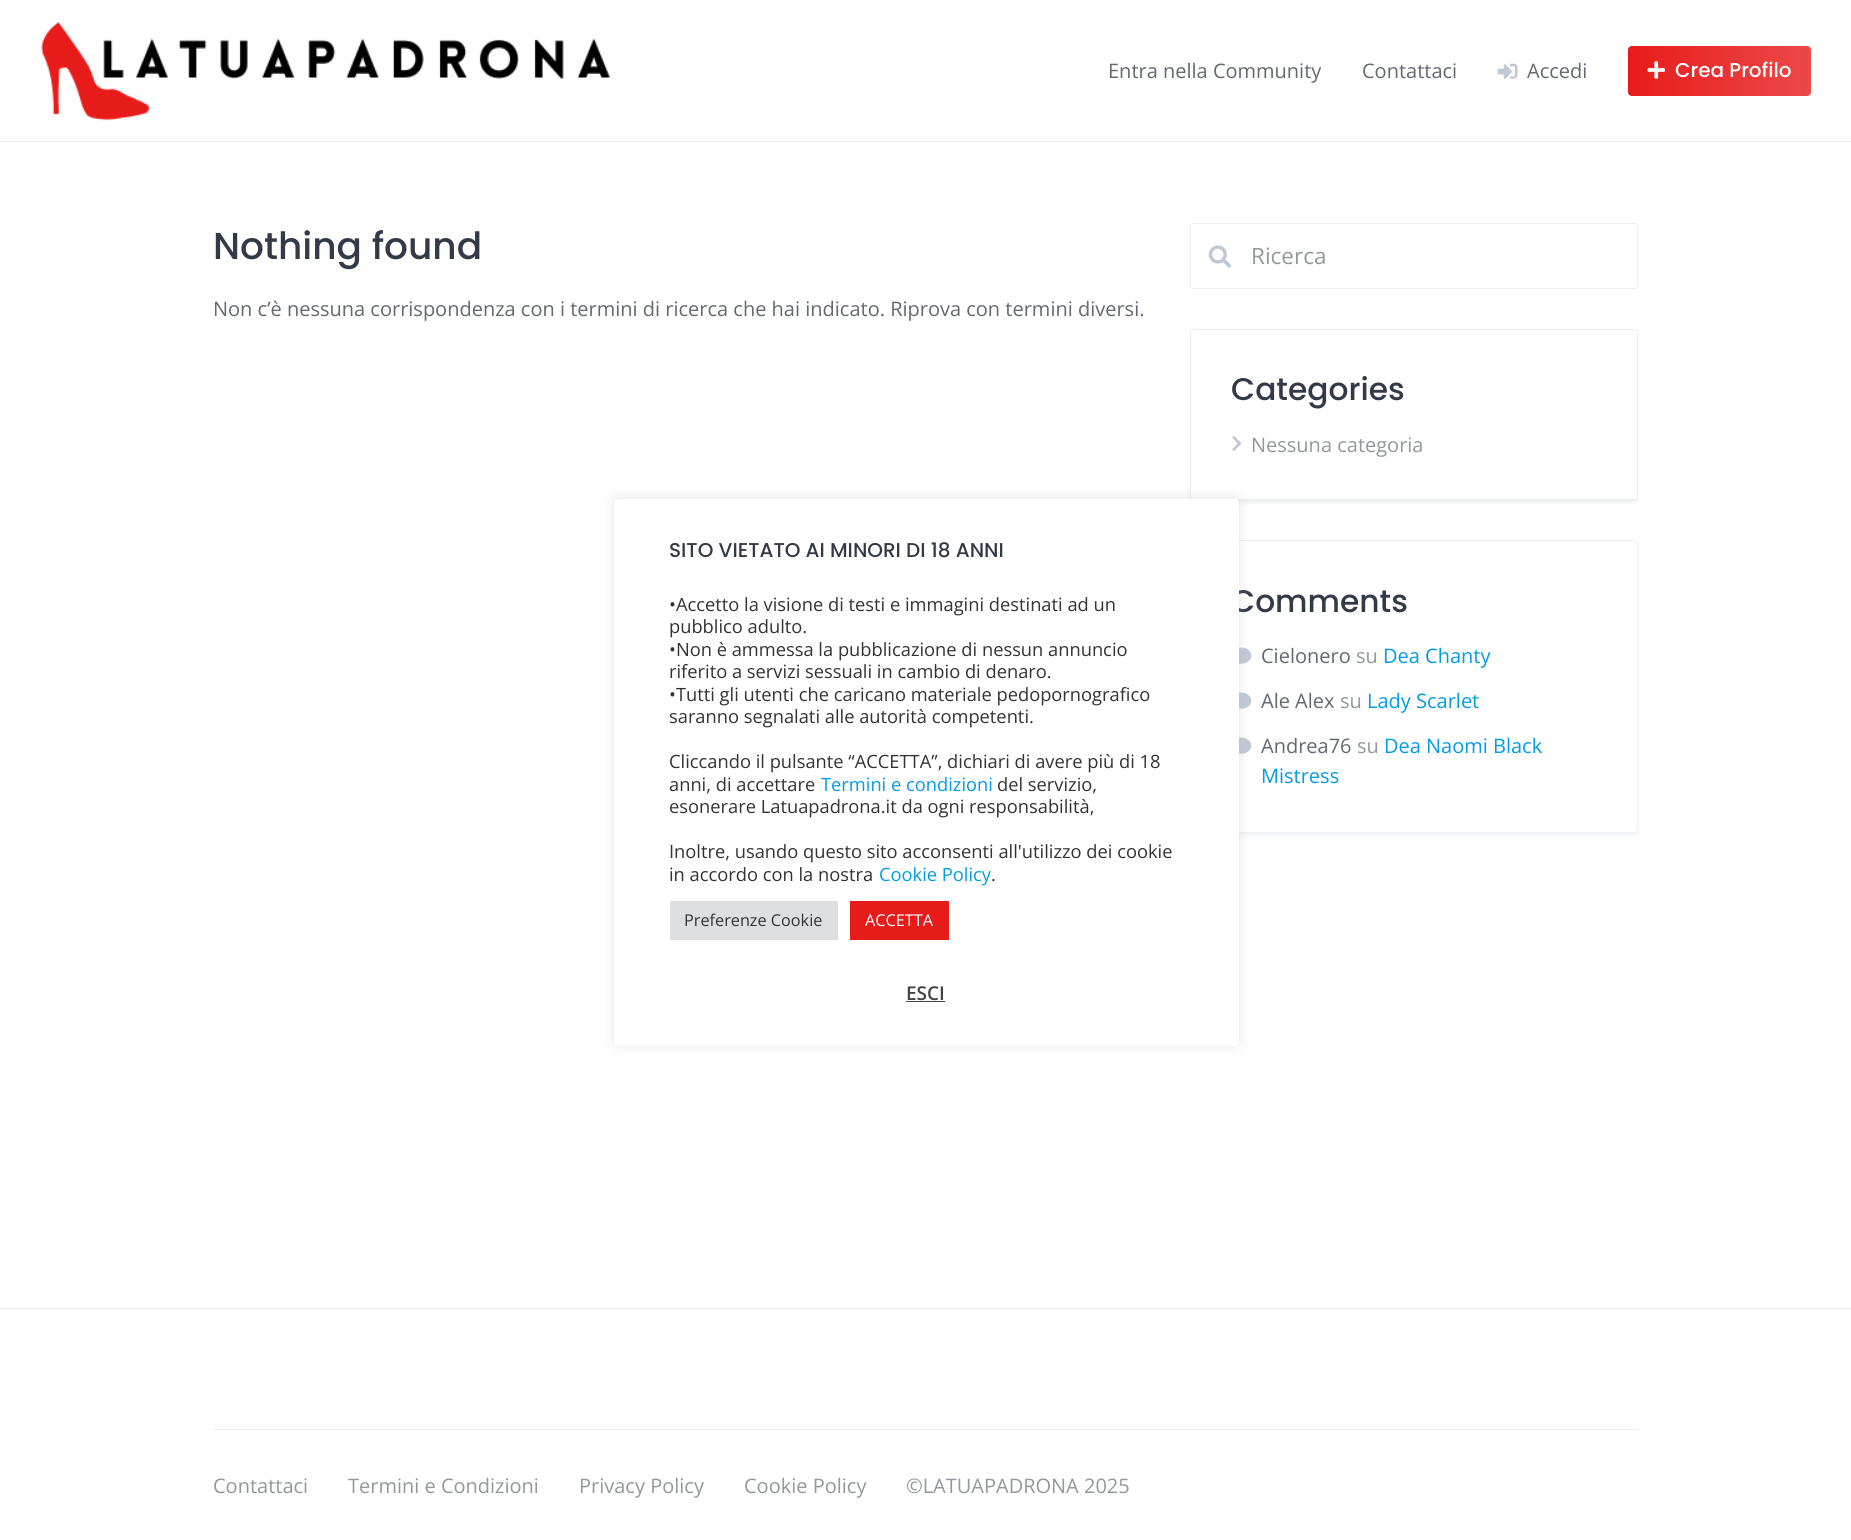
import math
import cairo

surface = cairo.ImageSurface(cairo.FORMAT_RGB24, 1851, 1540)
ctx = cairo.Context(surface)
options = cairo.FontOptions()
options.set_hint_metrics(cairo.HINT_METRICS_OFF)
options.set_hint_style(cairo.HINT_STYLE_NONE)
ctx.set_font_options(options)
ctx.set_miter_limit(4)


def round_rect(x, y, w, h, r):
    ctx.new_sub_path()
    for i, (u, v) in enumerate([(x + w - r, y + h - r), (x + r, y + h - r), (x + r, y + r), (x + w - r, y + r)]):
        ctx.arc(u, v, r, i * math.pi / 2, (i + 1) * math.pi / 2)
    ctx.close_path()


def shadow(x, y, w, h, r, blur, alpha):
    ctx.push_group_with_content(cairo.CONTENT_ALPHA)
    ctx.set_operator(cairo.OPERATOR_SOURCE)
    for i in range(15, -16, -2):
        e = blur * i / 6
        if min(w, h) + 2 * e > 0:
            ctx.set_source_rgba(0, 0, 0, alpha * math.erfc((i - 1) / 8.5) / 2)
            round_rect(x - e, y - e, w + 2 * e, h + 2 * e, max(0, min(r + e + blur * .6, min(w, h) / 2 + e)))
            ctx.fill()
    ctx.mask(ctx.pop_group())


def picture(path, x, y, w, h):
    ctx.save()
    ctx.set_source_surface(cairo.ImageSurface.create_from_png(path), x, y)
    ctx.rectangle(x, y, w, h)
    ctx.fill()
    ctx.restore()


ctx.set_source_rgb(1, 1, 1)
ctx.paint()
ctx.set_source_rgb(0.925, 0.937, 0.949)
ctx.rectangle(0, 141, 1851, 1)
ctx.fill()
picture("img1.png", 41, 21, 570, 100)
ctx.select_font_face("Open Sans")
ctx.set_font_size(20)
ctx.set_source_rgb(0.388, 0.408, 0.451)
ctx.move_to(1108, 78)
ctx.show_text("Entra nella Community")
ctx.move_to(1362, 78)
ctx.show_text("Contattaci")
picture("img2.png", 1497, 63, 21, 16)
ctx.move_to(1527, 78)
ctx.show_text("Accedi")
ctx.set_source_rgb(0.91, 0.106, 0.106)
round_rect(1628, 46, 183, 50, 4)
ctx.fill()
gradient = cairo.LinearGradient(1628, 71, 1811, 71)
gradient.add_color_stop_rgba(0, 1, 1, 1, 0)
gradient.add_color_stop_rgba(1, 1, 1, 1, 0.2)
ctx.set_source(gradient)
round_rect(1628, 46, 183, 50, 4)
ctx.fill()
picture("img3.png", 1647, 61, 18, 18)
ctx.select_font_face("Poppins Medium")
ctx.set_source_rgb(1, 1, 1)
ctx.move_to(1675, 77)
ctx.show_text("Crea Profilo")
ctx.set_font_size(37.5)
ctx.set_source_rgb(0.2, 0.227, 0.278)
ctx.move_to(213, 259)
ctx.show_text("Nothing found")
ctx.select_font_face("Open Sans")
ctx.set_font_size(20)
ctx.set_source_rgb(0.388, 0.408, 0.451)
ctx.move_to(213, 316)
ctx.show_text("Non c’è nessuna corrispondenza con i termini di ricerca che hai indicato. Riprova con termini diversi.")
round_rect(1190.5, 223.5, 447, 65, 3.5)
ctx.set_source_rgb(0.925, 0.937, 0.949)
ctx.set_line_width(1)
ctx.stroke()
picture("img4.png", 1208, 245, 24, 23)
ctx.set_font_size(22.5)
ctx.set_source_rgb(0.576, 0.592, 0.62)
ctx.move_to(1251, 264)
ctx.show_text("Ricerca")
ctx.set_source_rgb(0.027, 0.141, 0.337)
shadow(1190, 331, 448, 172, 4, 2.5, 0.07)
ctx.set_source_rgb(1, 1, 1)
round_rect(1190.5, 329.5, 447, 170, 3.5)
ctx.fill_preserve()
ctx.set_source_rgb(0.925, 0.937, 0.949)
ctx.stroke()
ctx.select_font_face("Poppins Medium")
ctx.set_font_size(31.25)
ctx.set_source_rgb(0.2, 0.227, 0.278)
ctx.move_to(1231, 400)
ctx.show_text("Categories")
picture("img5.png", 1232, 436, 10, 15)
ctx.select_font_face("Open Sans")
ctx.set_font_size(20)
ctx.set_source_rgb(0.576, 0.592, 0.62)
ctx.move_to(1251, 452)
ctx.show_text("Nessuna categoria")
ctx.set_source_rgb(0.027, 0.141, 0.337)
shadow(1190, 543, 448, 292, 4, 2.5, 0.07)
ctx.set_source_rgb(1, 1, 1)
round_rect(1190, 540, 448, 293, 4)
ctx.fill()
round_rect(1190.5, 540.5, 447, 292, 3.5)
ctx.set_source_rgba(0.027, 0.141, 0.337, 0.07)
ctx.stroke()
ctx.select_font_face("Poppins Medium")
ctx.set_font_size(31.25)
ctx.set_source_rgb(0.2, 0.227, 0.278)
ctx.move_to(1231, 612)
ctx.show_text("Comments")
picture("img6.png", 1239, 647, 13, 17)
ctx.select_font_face("Open Sans")
ctx.set_font_size(20)
ctx.set_source_rgb(0.388, 0.408, 0.451)
ctx.move_to(1261, 663)
ctx.show_text("Cielonero")
ctx.set_source_rgb(0.576, 0.592, 0.62)
ctx.move_to(1356, 663)
ctx.show_text("su")
ctx.set_source_rgb(0.012, 0.608, 0.898)
ctx.move_to(1383, 663)
ctx.show_text("Dea Chanty")
picture("img6.png", 1239, 692, 13, 17)
ctx.set_source_rgb(0.388, 0.408, 0.451)
ctx.move_to(1261, 708)
ctx.show_text("Ale Alex")
ctx.set_source_rgb(0.576, 0.592, 0.62)
ctx.move_to(1340, 708)
ctx.show_text("su")
ctx.set_source_rgb(0.012, 0.608, 0.898)
ctx.move_to(1367, 708)
ctx.show_text("Lady Scarlet")
picture("img6.png", 1239, 737, 13, 17)
ctx.set_source_rgb(0.388, 0.408, 0.451)
ctx.move_to(1261, 753)
ctx.show_text("Andrea76")
ctx.set_source_rgb(0.576, 0.592, 0.62)
ctx.move_to(1357, 753)
ctx.show_text("su")
ctx.set_source_rgb(0.012, 0.608, 0.898)
ctx.move_to(1384, 753)
ctx.show_text("Dea Naomi Black")
ctx.move_to(1261, 783)
ctx.show_text("Mistress")
ctx.set_source_rgb(0.675, 0.671, 0.671)
shadow(614, 498, 625, 547, 4, 6, 0.3)
ctx.set_source_rgb(1, 1, 1)
round_rect(614, 499, 625, 547, 4)
ctx.fill()
ctx.select_font_face("Poppins Medium")
ctx.set_source_rgb(0.2, 0.227, 0.278)
ctx.move_to(669, 557)
ctx.show_text("SITO VIETATO AI MINORI DI 18 ANNI")
ctx.select_font_face("Open Sans")
ctx.set_font_size(18.3)
ctx.set_source_rgb(0.2, 0.2, 0.2)
ctx.move_to(669, 611)
ctx.show_text("•Accetto la visione di testi e immagini destinati ad un")
ctx.move_to(669, 633)
ctx.show_text("pubblico adulto.")
ctx.move_to(669, 656)
ctx.show_text("•Non è ammessa la pubblicazione di nessun annuncio")
ctx.move_to(669, 678)
ctx.show_text("riferito a servizi sessuali in cambio di denaro.")
ctx.move_to(669, 701)
ctx.show_text("•Tutti gli utenti che caricano materiale pedopornografico")
ctx.move_to(669, 723)
ctx.show_text("saranno segnalati alle autorità competenti.")
ctx.move_to(669, 768)
ctx.show_text("Cliccando il pulsante “ACCETTA”, dichiari di avere più di 18")
ctx.move_to(669, 791)
ctx.show_text("anni, di accettare")
ctx.set_source_rgb(0.012, 0.608, 0.898)
ctx.move_to(821, 791)
ctx.show_text("Termini e condizioni")
ctx.set_source_rgb(0.2, 0.2, 0.2)
ctx.move_to(997, 791)
ctx.show_text("del servizio,")
ctx.move_to(669, 813)
ctx.show_text("esonerare Latuapadrona.it da ogni responsabilità,")
ctx.move_to(669, 858)
ctx.show_text("Inoltre, usando questo sito acconsenti all'utilizzo dei cookie")
ctx.move_to(669, 881)
ctx.show_text("in accordo con la nostra")
ctx.set_source_rgb(0.012, 0.608, 0.898)
ctx.move_to(879, 881)
ctx.show_text("Cookie Policy")
ctx.set_source_rgb(0.2, 0.2, 0.2)
ctx.move_to(991, 881)
ctx.show_text(".")
ctx.set_source_rgb(0.871, 0.875, 0.878)
ctx.rectangle(670, 901, 168, 39)
ctx.fill()
ctx.set_font_size(16.25)
ctx.set_source_rgb(0.2, 0.2, 0.2)
ctx.move_to(684, 926)
ctx.show_text("Preferenze Cookie")
ctx.set_source_rgb(0.91, 0.106, 0.106)
ctx.rectangle(850, 901, 99, 39)
ctx.fill()
ctx.set_source_rgb(1, 1, 1)
ctx.move_to(865, 926)
ctx.show_text("ACCETTA")
ctx.select_font_face("Open Sans SemiBold")
ctx.set_font_size(19)
ctx.set_source_rgb(0.267, 0.267, 0.267)
ctx.move_to(906, 1000)
ctx.show_text("ESCI")
ctx.rectangle(906, 1001, 39, 1)
ctx.fill()
ctx.set_source_rgb(0.925, 0.937, 0.949)
ctx.rectangle(0, 1308, 1851, 1)
ctx.fill()
ctx.rectangle(214, 1429, 1425, 1)
ctx.fill()
ctx.select_font_face("Open Sans")
ctx.set_font_size(20)
ctx.set_source_rgb(0.576, 0.592, 0.62)
ctx.move_to(213, 1493)
ctx.show_text("Contattaci")
ctx.move_to(348, 1493)
ctx.show_text("Termini e Condizioni")
ctx.move_to(579, 1493)
ctx.show_text("Privacy Policy")
ctx.move_to(744, 1493)
ctx.show_text("Cookie Policy")
ctx.move_to(906, 1493)
ctx.show_text("©LATUAPADRONA 2025")
surface.write_to_png("page.png")
